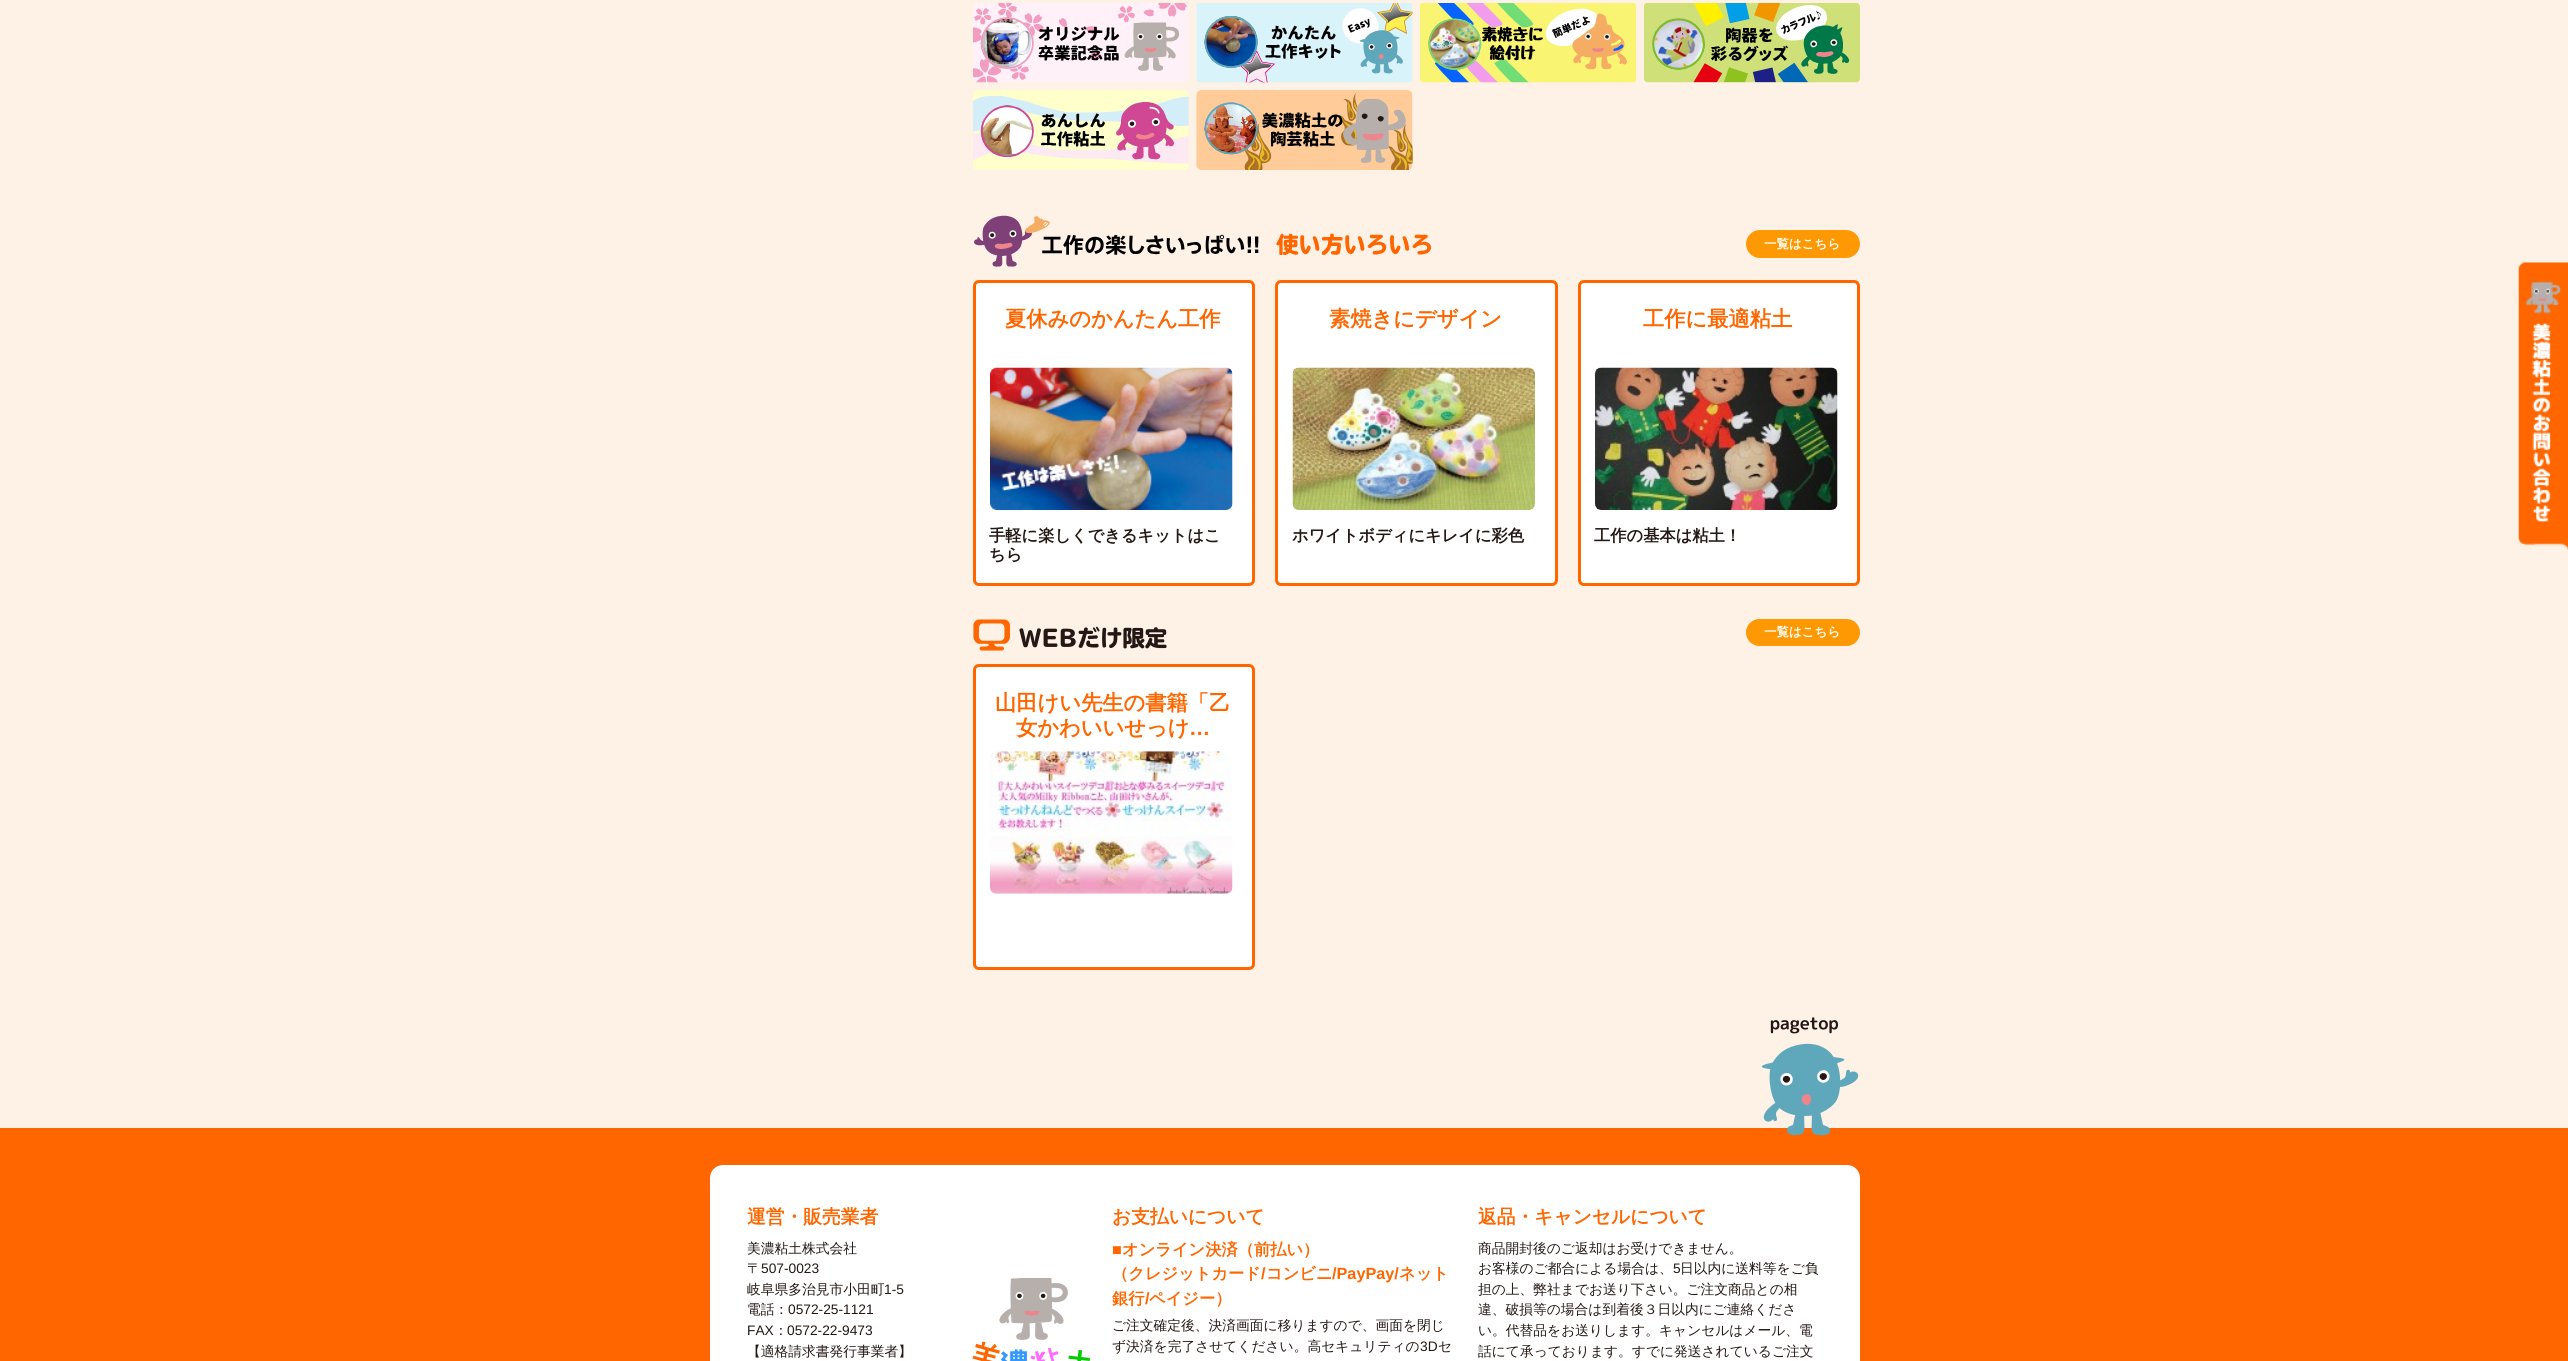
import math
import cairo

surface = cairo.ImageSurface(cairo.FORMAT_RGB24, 2568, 1361)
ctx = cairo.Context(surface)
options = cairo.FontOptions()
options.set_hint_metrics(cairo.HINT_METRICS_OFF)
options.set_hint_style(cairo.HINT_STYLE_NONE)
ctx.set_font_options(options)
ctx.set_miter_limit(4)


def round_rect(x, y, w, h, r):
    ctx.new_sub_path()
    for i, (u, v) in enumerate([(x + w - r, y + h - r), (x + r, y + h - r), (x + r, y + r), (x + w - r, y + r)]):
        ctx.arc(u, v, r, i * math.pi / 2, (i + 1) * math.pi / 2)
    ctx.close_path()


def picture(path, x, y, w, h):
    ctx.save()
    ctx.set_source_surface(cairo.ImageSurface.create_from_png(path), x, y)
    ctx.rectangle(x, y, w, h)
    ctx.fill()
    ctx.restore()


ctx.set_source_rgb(0.996, 0.945, 0.902)
ctx.paint()
picture("img1.png", 973, 3, 216, 80)
picture("img2.png", 1196, 3, 217, 80)
picture("img3.png", 1420, 3, 216, 80)
picture("img4.png", 1644, 3, 216, 80)
picture("img5.png", 973, 90, 216, 80)
picture("img6.png", 1196, 90, 217, 80)
picture("img7.png", 974, 215, 457, 52)
ctx.set_source_rgb(1, 0.6, 0.012)
round_rect(1746, 230, 114, 28, 14)
ctx.fill()
ctx.select_font_face("WenQuanYi Zen Hei", cairo.FONT_SLANT_NORMAL, cairo.FONT_WEIGHT_BOLD)
ctx.set_font_size(12.5)
ctx.set_source_rgb(1, 1, 1)
ctx.move_to(1764, 248)
ctx.show_text("一覧はこちら")
round_rect(974.5, 281.5, 279, 303, 4.5)
ctx.fill_preserve()
ctx.set_source_rgb(1, 0.4, 0)
ctx.set_line_width(3)
ctx.stroke()
ctx.set_font_size(21.25)
ctx.move_to(1005, 326)
ctx.show_text("夏休みのかんたん工作")
picture("img8.png", 990, 367, 243, 143)
ctx.set_font_size(16.25)
ctx.set_source_rgb(0.137, 0.094, 0.082)
ctx.move_to(989, 541)
ctx.show_text("手軽に楽しくできるキットはこ")
ctx.move_to(989, 560)
ctx.show_text("ちら")
ctx.set_source_rgb(1, 1, 1)
round_rect(1276.5, 281.5, 280, 303, 4.5)
ctx.fill_preserve()
ctx.set_source_rgb(1, 0.4, 0)
ctx.stroke()
ctx.set_font_size(21.25)
ctx.move_to(1329, 326)
ctx.show_text("素焼きにデザイン")
picture("img9.png", 1292, 367, 243, 143)
ctx.set_font_size(16.25)
ctx.set_source_rgb(0.137, 0.094, 0.082)
ctx.move_to(1292, 541)
ctx.show_text("ホワイトボディにキレイに彩色")
ctx.set_source_rgb(1, 1, 1)
round_rect(1579.5, 281.5, 279, 303, 4.5)
ctx.fill_preserve()
ctx.set_source_rgb(1, 0.4, 0)
ctx.stroke()
ctx.set_font_size(21.25)
ctx.move_to(1643, 326)
ctx.show_text("工作に最適粘土")
picture("img10.png", 1595, 367, 243, 143)
ctx.set_font_size(16.25)
ctx.set_source_rgb(0.137, 0.094, 0.082)
ctx.move_to(1594, 541)
ctx.show_text("工作の基本は粘土！")
picture("img11.png", 973, 619, 194, 32)
ctx.set_source_rgb(1, 0.6, 0.012)
round_rect(1746, 619, 114, 27, 13.5)
ctx.fill()
ctx.set_font_size(12.5)
ctx.set_source_rgb(1, 1, 1)
ctx.move_to(1764, 636)
ctx.show_text("一覧はこちら")
round_rect(974.5, 665.5, 279, 303, 4.5)
ctx.fill_preserve()
ctx.set_source_rgb(1, 0.4, 0)
ctx.stroke()
ctx.set_font_size(21.25)
ctx.move_to(995, 710)
ctx.show_text("山田けい先生の書籍「乙")
ctx.move_to(1016, 735)
ctx.show_text("女かわいいせっけ")
ctx.select_font_face("Liberation Sans", cairo.FONT_SLANT_NORMAL, cairo.FONT_WEIGHT_BOLD)
ctx.move_to(1189, 735)
ctx.show_text("…")
picture("img12.png", 990, 751, 243, 143)
picture("img13.png", 2518, 262, 50, 288)
ctx.rectangle(0, 1128, 2568, 233)
ctx.fill()
picture("img14.png", 1761, 1017, 98, 119)
ctx.set_source_rgb(1, 1, 1)
round_rect(710, 1165, 1150, 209, 13)
ctx.fill()
ctx.select_font_face("WenQuanYi Zen Hei", cairo.FONT_SLANT_NORMAL, cairo.FONT_WEIGHT_BOLD)
ctx.set_font_size(18.75)
ctx.set_source_rgb(1, 0.4, 0)
ctx.move_to(747, 1223)
ctx.show_text("運営・販売業者")
picture("img15.png", 972, 1278, 118, 83)
ctx.select_font_face("WenQuanYi Zen Hei Medium")
ctx.set_font_size(13.75)
ctx.set_source_rgb(0.137, 0.094, 0.082)
ctx.move_to(747, 1253)
ctx.show_text("美濃粘土株式会社")
ctx.move_to(747, 1273)
ctx.show_text("〒")
ctx.select_font_face("Liberation Sans")
ctx.move_to(761, 1273)
ctx.show_text("507-0023")
ctx.select_font_face("WenQuanYi Zen Hei Medium")
ctx.move_to(747, 1294)
ctx.show_text("岐阜県多治見市小田町")
ctx.select_font_face("Liberation Sans")
ctx.move_to(884, 1294)
ctx.show_text("1-5")
ctx.select_font_face("WenQuanYi Zen Hei Medium")
ctx.move_to(747, 1314)
ctx.show_text("電話：")
ctx.select_font_face("Liberation Sans")
ctx.move_to(788, 1314)
ctx.show_text("0572-25-1121")
ctx.move_to(747, 1335)
ctx.show_text("FAX")
ctx.select_font_face("WenQuanYi Zen Hei Medium")
ctx.move_to(774, 1335)
ctx.show_text("：")
ctx.select_font_face("Liberation Sans")
ctx.move_to(787, 1335)
ctx.show_text("0572-22-9473")
ctx.select_font_face("WenQuanYi Zen Hei Medium")
ctx.move_to(747, 1356)
ctx.show_text("【適格請求書発行事業者】")
ctx.select_font_face("WenQuanYi Zen Hei", cairo.FONT_SLANT_NORMAL, cairo.FONT_WEIGHT_BOLD)
ctx.set_font_size(18.75)
ctx.set_source_rgb(1, 0.4, 0)
ctx.move_to(1112, 1223)
ctx.show_text("お支払いについて")
ctx.select_font_face("Liberation Sans", cairo.FONT_SLANT_NORMAL, cairo.FONT_WEIGHT_BOLD)
ctx.set_font_size(16.25)
ctx.move_to(1112, 1255)
ctx.show_text("■")
ctx.select_font_face("WenQuanYi Zen Hei", cairo.FONT_SLANT_NORMAL, cairo.FONT_WEIGHT_BOLD)
ctx.move_to(1122, 1255)
ctx.show_text("オンライン決済（前払い）")
ctx.move_to(1112, 1279)
ctx.show_text("（クレジットカード")
ctx.select_font_face("Liberation Sans", cairo.FONT_SLANT_NORMAL, cairo.FONT_WEIGHT_BOLD)
ctx.move_to(1261, 1279)
ctx.show_text("/")
ctx.select_font_face("WenQuanYi Zen Hei", cairo.FONT_SLANT_NORMAL, cairo.FONT_WEIGHT_BOLD)
ctx.move_to(1266, 1279)
ctx.show_text("コンビニ")
ctx.select_font_face("Liberation Sans", cairo.FONT_SLANT_NORMAL, cairo.FONT_WEIGHT_BOLD)
ctx.move_to(1332, 1279)
ctx.show_text("/PayPay/")
ctx.select_font_face("WenQuanYi Zen Hei", cairo.FONT_SLANT_NORMAL, cairo.FONT_WEIGHT_BOLD)
ctx.move_to(1399, 1279)
ctx.show_text("ネット")
ctx.move_to(1112, 1304)
ctx.show_text("銀行")
ctx.select_font_face("Liberation Sans", cairo.FONT_SLANT_NORMAL, cairo.FONT_WEIGHT_BOLD)
ctx.move_to(1145, 1304)
ctx.show_text("/")
ctx.select_font_face("WenQuanYi Zen Hei", cairo.FONT_SLANT_NORMAL, cairo.FONT_WEIGHT_BOLD)
ctx.move_to(1149, 1304)
ctx.show_text("ペイジー）")
ctx.select_font_face("WenQuanYi Zen Hei Medium")
ctx.set_font_size(13.75)
ctx.set_source_rgb(0.137, 0.094, 0.082)
ctx.move_to(1112, 1330)
ctx.show_text("ご注文確定後、決済画面に移りますので、画面を閉じ")
ctx.move_to(1112, 1351)
ctx.show_text("ず決済を完了させてください。高セキュリティの")
ctx.select_font_face("Liberation Sans")
ctx.move_to(1420, 1351)
ctx.show_text("3D")
ctx.select_font_face("WenQuanYi Zen Hei Medium")
ctx.move_to(1438, 1351)
ctx.show_text("セ")
ctx.select_font_face("WenQuanYi Zen Hei", cairo.FONT_SLANT_NORMAL, cairo.FONT_WEIGHT_BOLD)
ctx.set_font_size(18.75)
ctx.set_source_rgb(1, 0.4, 0)
ctx.move_to(1478, 1223)
ctx.show_text("返品・キャンセルについて")
ctx.select_font_face("WenQuanYi Zen Hei Medium")
ctx.set_font_size(13.75)
ctx.set_source_rgb(0.137, 0.094, 0.082)
ctx.move_to(1478, 1253)
ctx.show_text("商品開封後のご返却はお受けできません。")
ctx.move_to(1478, 1273)
ctx.show_text("お客様のご都合による場合は、")
ctx.select_font_face("Liberation Sans")
ctx.move_to(1673, 1273)
ctx.show_text("5")
ctx.select_font_face("WenQuanYi Zen Hei Medium")
ctx.move_to(1680, 1273)
ctx.show_text("日以内に送料等をご負")
ctx.move_to(1478, 1294)
ctx.show_text("担の上、弊社までお送り下さい。ご注文商品との相")
ctx.move_to(1478, 1314)
ctx.show_text("違、破損等の場合は到着後３日以内にご連絡くださ")
ctx.move_to(1478, 1335)
ctx.show_text("い。代替品をお送りします。キャンセルはメール、電")
ctx.move_to(1478, 1356)
ctx.show_text("話にて承っております。すでに発送されているご注文")
surface.write_to_png("page.png")
